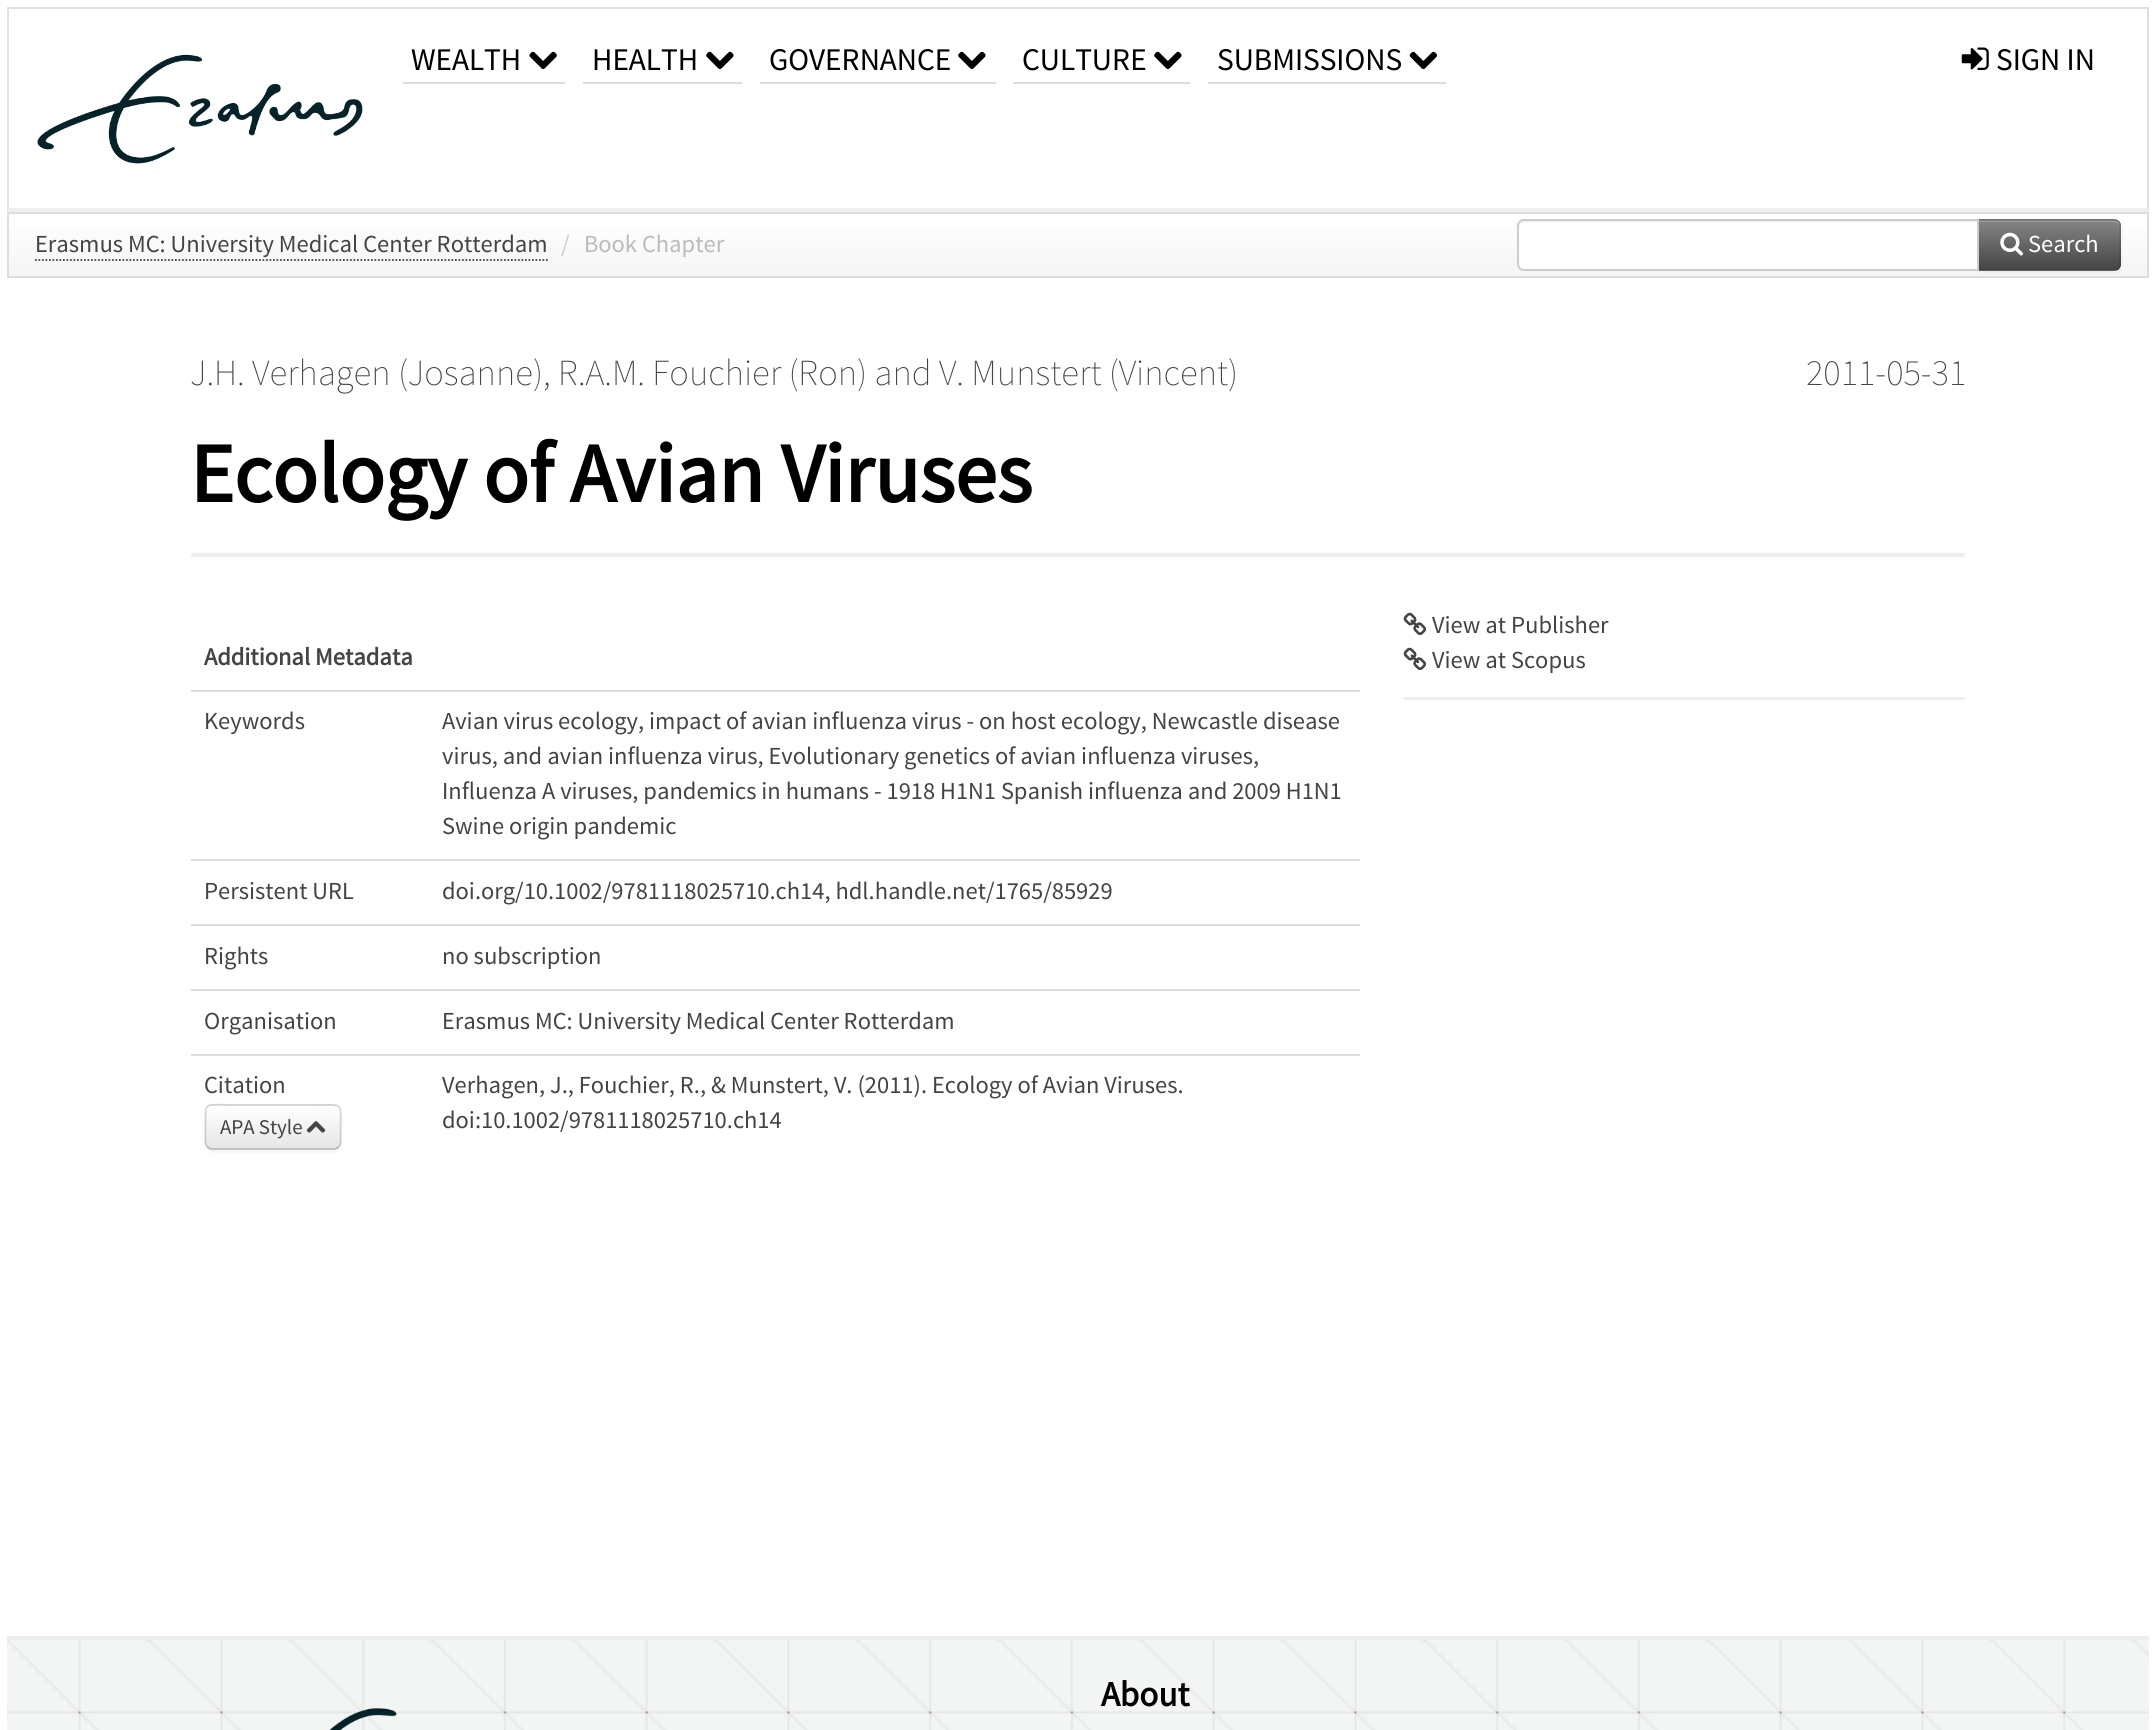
import math
import cairo

surface = cairo.ImageSurface(cairo.FORMAT_RGB24, 2155, 1730)
ctx = cairo.Context(surface)
options = cairo.FontOptions()
options.set_hint_metrics(cairo.HINT_METRICS_OFF)
options.set_hint_style(cairo.HINT_STYLE_NONE)
ctx.set_font_options(options)
ctx.set_miter_limit(4)


def round_rect(x, y, w, h, r):
    ctx.new_sub_path()
    for i, (u, v) in enumerate([(x + w - r, y + h - r), (x + r, y + h - r), (x + r, y + r), (x + w - r, y + r)]):
        ctx.arc(u, v, r, i * math.pi / 2, (i + 1) * math.pi / 2)
    ctx.close_path()


def shadow(x, y, w, h, r, blur, alpha):
    ctx.push_group_with_content(cairo.CONTENT_ALPHA)
    ctx.set_operator(cairo.OPERATOR_SOURCE)
    for i in range(15, -16, -2):
        e = blur * i / 6
        if min(w, h) + 2 * e > 0:
            ctx.set_source_rgba(0, 0, 0, alpha * math.erfc((i - 1) / 8.5) / 2)
            round_rect(x - e, y - e, w + 2 * e, h + 2 * e, max(0, min(r + e + blur * .6, min(w, h) / 2 + e)))
            ctx.fill()
    ctx.mask(ctx.pop_group())


def picture(path, x, y, w, h):
    ctx.save()
    ctx.set_source_surface(cairo.ImageSurface.create_from_png(path), x, y)
    ctx.rectangle(x, y, w, h)
    ctx.fill()
    ctx.restore()


ctx.set_source_rgb(1, 1, 1)
ctx.paint()
ctx.set_source_rgb(0.878, 0.878, 0.878)
ctx.rectangle(7, 7, 2142, 2)
ctx.fill()
ctx.new_path()
ctx.move_to(2149, 7)
ctx.line_to(2149, 212)
ctx.line_to(2147, 208)
ctx.line_to(2147, 9)
ctx.close_path()
ctx.fill()
ctx.set_source_rgb(0.933, 0.933, 0.933)
ctx.new_path()
ctx.move_to(2149, 212)
ctx.line_to(7, 212)
ctx.line_to(9, 208)
ctx.line_to(2147, 208)
ctx.close_path()
ctx.fill()
ctx.set_source_rgb(0.878, 0.878, 0.878)
ctx.new_path()
ctx.move_to(7, 212)
ctx.line_to(7, 7)
ctx.line_to(9, 9)
ctx.line_to(9, 208)
ctx.close_path()
ctx.fill()
picture("img1.png", 37, 54, 326, 110)
ctx.set_source_rgb(0.867, 0.867, 0.867)
ctx.rectangle(403, 82, 162, 2)
ctx.fill()
ctx.select_font_face("Source Sans Pro")
ctx.set_font_size(31.5)
ctx.set_source_rgb(0, 0, 0)
ctx.move_to(411, 70)
ctx.show_text("WEALTH")
picture("img2.png", 529, 51, 28, 18)
ctx.set_source_rgb(0.867, 0.867, 0.867)
ctx.rectangle(583, 82, 159, 2)
ctx.fill()
ctx.set_source_rgb(0, 0, 0)
ctx.move_to(592, 70)
ctx.show_text("HEALTH")
picture("img3.png", 706, 51, 28, 18)
ctx.set_source_rgb(0.867, 0.867, 0.867)
ctx.rectangle(760, 82, 236, 2)
ctx.fill()
ctx.set_source_rgb(0, 0, 0)
ctx.move_to(769, 70)
ctx.show_text("GOVERNANCE")
picture("img4.png", 958, 51, 28, 18)
ctx.set_source_rgb(0.867, 0.867, 0.867)
ctx.rectangle(1013, 82, 177, 2)
ctx.fill()
ctx.set_source_rgb(0, 0, 0)
ctx.move_to(1022, 70)
ctx.show_text("CULTURE")
picture("img3.png", 1154, 51, 28, 18)
ctx.set_source_rgb(0.867, 0.867, 0.867)
ctx.rectangle(1208, 82, 238, 2)
ctx.fill()
ctx.set_source_rgb(0, 0, 0)
ctx.move_to(1217, 70)
ctx.show_text("SUBMISSIONS")
picture("img5.png", 1409, 51, 29, 19)
picture("img6.png", 1961, 47, 28, 23)
ctx.move_to(1996, 70)
ctx.show_text("SIGN IN")
gradient = cairo.LinearGradient(1078, 213, 1078, 277)
gradient.add_color_stop_rgba(0, 1, 1, 1, 1)
gradient.add_color_stop_rgba(1, 0.961, 0.961, 0.961, 1)
ctx.set_source(gradient)
ctx.rectangle(9, 229, 2138, 47)
ctx.fill()
ctx.rectangle(8, 213, 2140, 64)
ctx.set_source_rgb(0.867, 0.867, 0.867)
ctx.stroke()
ctx.set_font_size(24.5)
ctx.set_source_rgb(0.267, 0.267, 0.267)
ctx.move_to(35, 252)
ctx.show_text("Erasmus MC: University Medical Center Rotterdam")
ctx.new_path()
ctx.move_to(35, 260)
ctx.line_to(548, 260)
ctx.set_line_width(1.8)
ctx.set_dash([1.75, 1.75])
ctx.stroke()
ctx.set_source_rgb(0.8, 0.8, 0.8)
ctx.move_to(561, 252)
ctx.show_text("/")
ctx.set_source_rgb(0.733, 0.733, 0.733)
ctx.move_to(584, 252)
ctx.show_text("Book Chapter")
ctx.set_source_rgb(0, 0, 0)
shadow(1978, 221, 143, 52, 7, 2, 0.05)
ctx.set_source_rgb(0.498, 0.498, 0.498)
ctx.new_path()
ctx.move_to(1978, 219)
ctx.line_to(2114, 219)
ctx.curve_to(2118, 219, 2121, 222, 2121, 226)
ctx.line_to(2121, 264)
ctx.curve_to(2121, 268, 2118, 271, 2114, 271)
ctx.line_to(1978, 271)
ctx.close_path()
ctx.fill()
ctx.save()
ctx.new_path()
ctx.move_to(1978, 219)
ctx.line_to(2114, 219)
ctx.curve_to(2118, 219, 2121, 222, 2121, 226)
ctx.line_to(2121, 264)
ctx.curve_to(2121, 268, 2118, 271, 2114, 271)
ctx.line_to(1978, 271)
ctx.close_path()
ctx.clip()
gradient = cairo.LinearGradient(2049, 221, 2049, 270)
gradient.add_color_stop_rgba(0, 0.518, 0.518, 0.518, 1)
gradient.add_color_stop_rgba(1, 0.267, 0.267, 0.267, 1)
ctx.set_source(gradient)
ctx.rectangle(1979, 221, 142, 49)
ctx.fill()
ctx.restore()
ctx.set_source_rgba(1, 1, 1, 0.2)
ctx.new_path()
ctx.move_to(1979, 222)
ctx.line_to(2114, 222)
ctx.curve_to(2117, 222, 2119, 225, 2119, 228)
ctx.line_to(2119, 226)
ctx.curve_to(2119, 223, 2117, 221, 2114, 221)
ctx.line_to(1979, 221)
ctx.close_path()
ctx.fill()
ctx.set_source_rgba(0, 0, 0, 0.1)
ctx.new_path()
ctx.move_to(1978, 219)
ctx.line_to(1979, 220)
ctx.line_to(2114, 220)
ctx.curve_to(2116, 220, 2117, 221, 2118, 222)
ctx.line_to(2119, 221)
ctx.curve_to(2118, 220, 2116, 219, 2114, 219)
ctx.close_path()
ctx.fill()
ctx.new_path()
ctx.move_to(2119, 221)
ctx.curve_to(2120, 222, 2121, 224, 2121, 226)
ctx.line_to(2121, 264)
ctx.curve_to(2121, 266, 2120, 268, 2119, 269)
ctx.line_to(2118, 268)
ctx.curve_to(2119, 267, 2119, 265, 2119, 264)
ctx.line_to(2119, 226)
ctx.curve_to(2119, 225, 2119, 223, 2118, 222)
ctx.close_path()
ctx.fill()
ctx.set_source_rgba(0, 0, 0, 0.25)
ctx.new_path()
ctx.move_to(2119, 269)
ctx.curve_to(2118, 270, 2116, 271, 2114, 271)
ctx.line_to(1978, 271)
ctx.line_to(1979, 270)
ctx.line_to(2114, 270)
ctx.curve_to(2116, 270, 2117, 269, 2118, 268)
ctx.close_path()
ctx.fill()
ctx.set_source_rgb(1, 1, 1)
ctx.new_path()
ctx.move_to(1524, 219)
ctx.line_to(1979, 219)
ctx.line_to(1979, 271)
ctx.line_to(1524, 271)
ctx.curve_to(1520, 271, 1517, 268, 1517, 264)
ctx.line_to(1517, 226)
ctx.curve_to(1517, 222, 1520, 219, 1524, 219)
ctx.close_path()
ctx.fill()
ctx.set_source_rgb(0.925, 0.925, 0.925)
ctx.new_path()
ctx.move_to(1524, 222)
ctx.line_to(1978, 222)
ctx.line_to(1978, 221)
ctx.line_to(1524, 221)
ctx.curve_to(1520, 221, 1519, 225, 1519, 228)
ctx.curve_to(1519, 225, 1521, 222, 1524, 222)
ctx.close_path()
ctx.fill()
ctx.new_path()
ctx.move_to(1524, 220)
ctx.line_to(1978, 220)
ctx.line_to(1978, 270)
ctx.line_to(1524, 270)
ctx.curve_to(1520.5, 270, 1518, 267.5, 1518, 264)
ctx.line_to(1518, 226)
ctx.curve_to(1518, 222.5, 1520.5, 220, 1524, 220)
ctx.close_path()
ctx.set_source_rgb(0.8, 0.8, 0.8)
ctx.set_line_width(2)
ctx.set_dash([])
ctx.stroke()
picture("img7.png", 2000, 232, 23, 24)
ctx.set_source_rgb(1, 1, 1)
ctx.move_to(2028, 252)
ctx.show_text("Search")
ctx.set_source_rgb(0.933, 0.933, 0.933)
ctx.rectangle(191, 553, 1774, 4)
ctx.fill()
ctx.select_font_face("Source Sans Pro ExtraLight")
ctx.set_font_size(36.75)
ctx.set_source_rgb(0.267, 0.267, 0.267)
ctx.move_to(190, 385)
ctx.show_text("J.H. Verhagen (Josanne), R.A.M. Fouchier (Ron) and V. Munstert (Vincent)")
ctx.move_to(1806, 385)
ctx.show_text("2011-05-31")
ctx.select_font_face("Source Sans Pro", cairo.FONT_SLANT_NORMAL, cairo.FONT_WEIGHT_BOLD)
ctx.set_font_size(84)
ctx.set_source_rgb(0, 0, 0)
ctx.move_to(190, 502)
ctx.show_text("Ecology of Avian Viruses")
ctx.set_font_size(24.5)
ctx.set_source_rgb(0.267, 0.267, 0.267)
ctx.move_to(204, 665)
ctx.show_text("Additional Metadata")
ctx.select_font_face("Source Sans Pro")
ctx.move_to(204, 729)
ctx.show_text("Keywords")
ctx.set_source_rgb(0.867, 0.867, 0.867)
ctx.rectangle(191, 690, 1169, 2)
ctx.fill()
ctx.set_source_rgb(0.267, 0.267, 0.267)
ctx.move_to(442, 729)
ctx.show_text("Avian virus ecology, impact of avian influenza virus - on host ecology, Newcastle disease")
ctx.move_to(442, 764)
ctx.show_text("virus, and avian influenza virus, Evolutionary genetics of avian influenza viruses,")
ctx.move_to(442, 799)
ctx.show_text("Influenza A viruses, pandemics in humans - 1918 H1N1 Spanish influenza and 2009 H1N1")
ctx.move_to(442, 834)
ctx.show_text("Swine origin pandemic")
ctx.move_to(204, 899)
ctx.show_text("Persistent URL")
ctx.set_source_rgb(0.867, 0.867, 0.867)
ctx.rectangle(191, 859, 1169, 2)
ctx.fill()
ctx.set_source_rgb(0.267, 0.267, 0.267)
ctx.move_to(442, 899)
ctx.show_text("doi.org/10.1002/9781118025710.ch14, hdl.handle.net/1765/85929")
ctx.move_to(204, 964)
ctx.show_text("Rights")
ctx.set_source_rgb(0.867, 0.867, 0.867)
ctx.rectangle(191, 924, 1169, 2)
ctx.fill()
ctx.set_source_rgb(0.267, 0.267, 0.267)
ctx.move_to(442, 964)
ctx.show_text("no subscription")
ctx.move_to(204, 1029)
ctx.show_text("Organisation")
ctx.set_source_rgb(0.867, 0.867, 0.867)
ctx.rectangle(191, 989, 1169, 2)
ctx.fill()
ctx.set_source_rgb(0.267, 0.267, 0.267)
ctx.move_to(442, 1029)
ctx.show_text("Erasmus MC: University Medical Center Rotterdam")
ctx.move_to(204, 1093)
ctx.show_text("Citation")
ctx.set_source_rgb(0, 0, 0)
shadow(205, 1106, 136, 46, 7, 2, 0.05)
ctx.set_source_rgb(0.961, 0.961, 0.961)
round_rect(205, 1104, 136, 46, 7)
ctx.fill()
ctx.save()
round_rect(205, 1104, 136, 46, 7)
ctx.clip()
gradient = cairo.LinearGradient(273, 1106, 273, 1148)
gradient.add_color_stop_rgba(0, 1, 1, 1, 1)
gradient.add_color_stop_rgba(1, 0.902, 0.902, 0.902, 1)
ctx.set_source(gradient)
ctx.rectangle(205, 1106, 136, 42)
ctx.fill()
ctx.restore()
ctx.set_source_rgba(1, 1, 1, 0.12)
ctx.new_path()
ctx.move_to(212, 1106)
ctx.curve_to(209, 1106, 207, 1108, 207, 1111)
ctx.line_to(207, 1143)
ctx.curve_to(207, 1146, 209, 1148, 212, 1148)
ctx.line_to(214, 1148)
ctx.curve_to(211, 1148, 208, 1146, 208, 1143)
ctx.line_to(208, 1111)
ctx.curve_to(208, 1108, 211, 1106, 214, 1106)
ctx.close_path()
ctx.fill()
ctx.new_path()
ctx.move_to(338.5, 1147)
ctx.curve_to(337.5, 1148, 336, 1149, 334, 1149)
ctx.line_to(212, 1149)
ctx.curve_to(210, 1149, 208.5, 1148, 207.5, 1147)
ctx.set_source_rgba(0, 0, 0, 0.25)
ctx.set_line_width(1.8)
ctx.stroke()
ctx.new_path()
ctx.move_to(207.5, 1147)
ctx.curve_to(205, 1144.5, 205.5, 1140.5, 205.5, 1137.5)
ctx.line_to(205.5, 1127)
ctx.curve_to(205.5, 1100.5, 203.5, 1105, 232, 1105)
ctx.line_to(314, 1105)
ctx.curve_to(345.5, 1105, 340.5, 1101.5, 340.5, 1132)
ctx.curve_to(340.5, 1136, 342, 1143.5, 338.5, 1147)
ctx.set_source_rgba(0, 0, 0, 0.15)
ctx.stroke()
ctx.set_font_size(21)
ctx.set_source_rgb(0.267, 0.267, 0.267)
ctx.move_to(220, 1134)
ctx.show_text("APA Style")
picture("img8.png", 306, 1121, 20, 12)
ctx.set_source_rgb(0.867, 0.867, 0.867)
ctx.rectangle(191, 1054, 1169, 2)
ctx.fill()
ctx.set_font_size(24.5)
ctx.set_source_rgb(0.267, 0.267, 0.267)
ctx.move_to(442, 1093)
ctx.show_text("Verhagen, J., Fouchier, R., & Munstert, V. (2011). Ecology of Avian Viruses.")
ctx.move_to(442, 1128)
ctx.show_text("doi:10.1002/9781118025710.ch14")
picture("img9.png", 1403, 612, 23, 23)
ctx.move_to(1432, 633)
ctx.show_text("View at Publisher")
picture("img9.png", 1403, 647, 23, 23)
ctx.move_to(1432, 668)
ctx.show_text("View at Scopus")
ctx.set_source_rgb(0.933, 0.933, 0.933)
ctx.rectangle(1404, 697, 561, 3)
ctx.fill()
picture("img10.png", 7, 1640, 2142, 90)
ctx.rectangle(7, 1636, 2142, 4)
ctx.fill()
ctx.select_font_face("Source Sans Pro", cairo.FONT_SLANT_NORMAL, cairo.FONT_WEIGHT_BOLD)
ctx.set_font_size(35)
ctx.set_source_rgb(0, 0, 0)
ctx.move_to(1101, 1706)
ctx.show_text("About")
picture("img11.png", 329, 1708, 68, 22)
surface.write_to_png("page.png")
